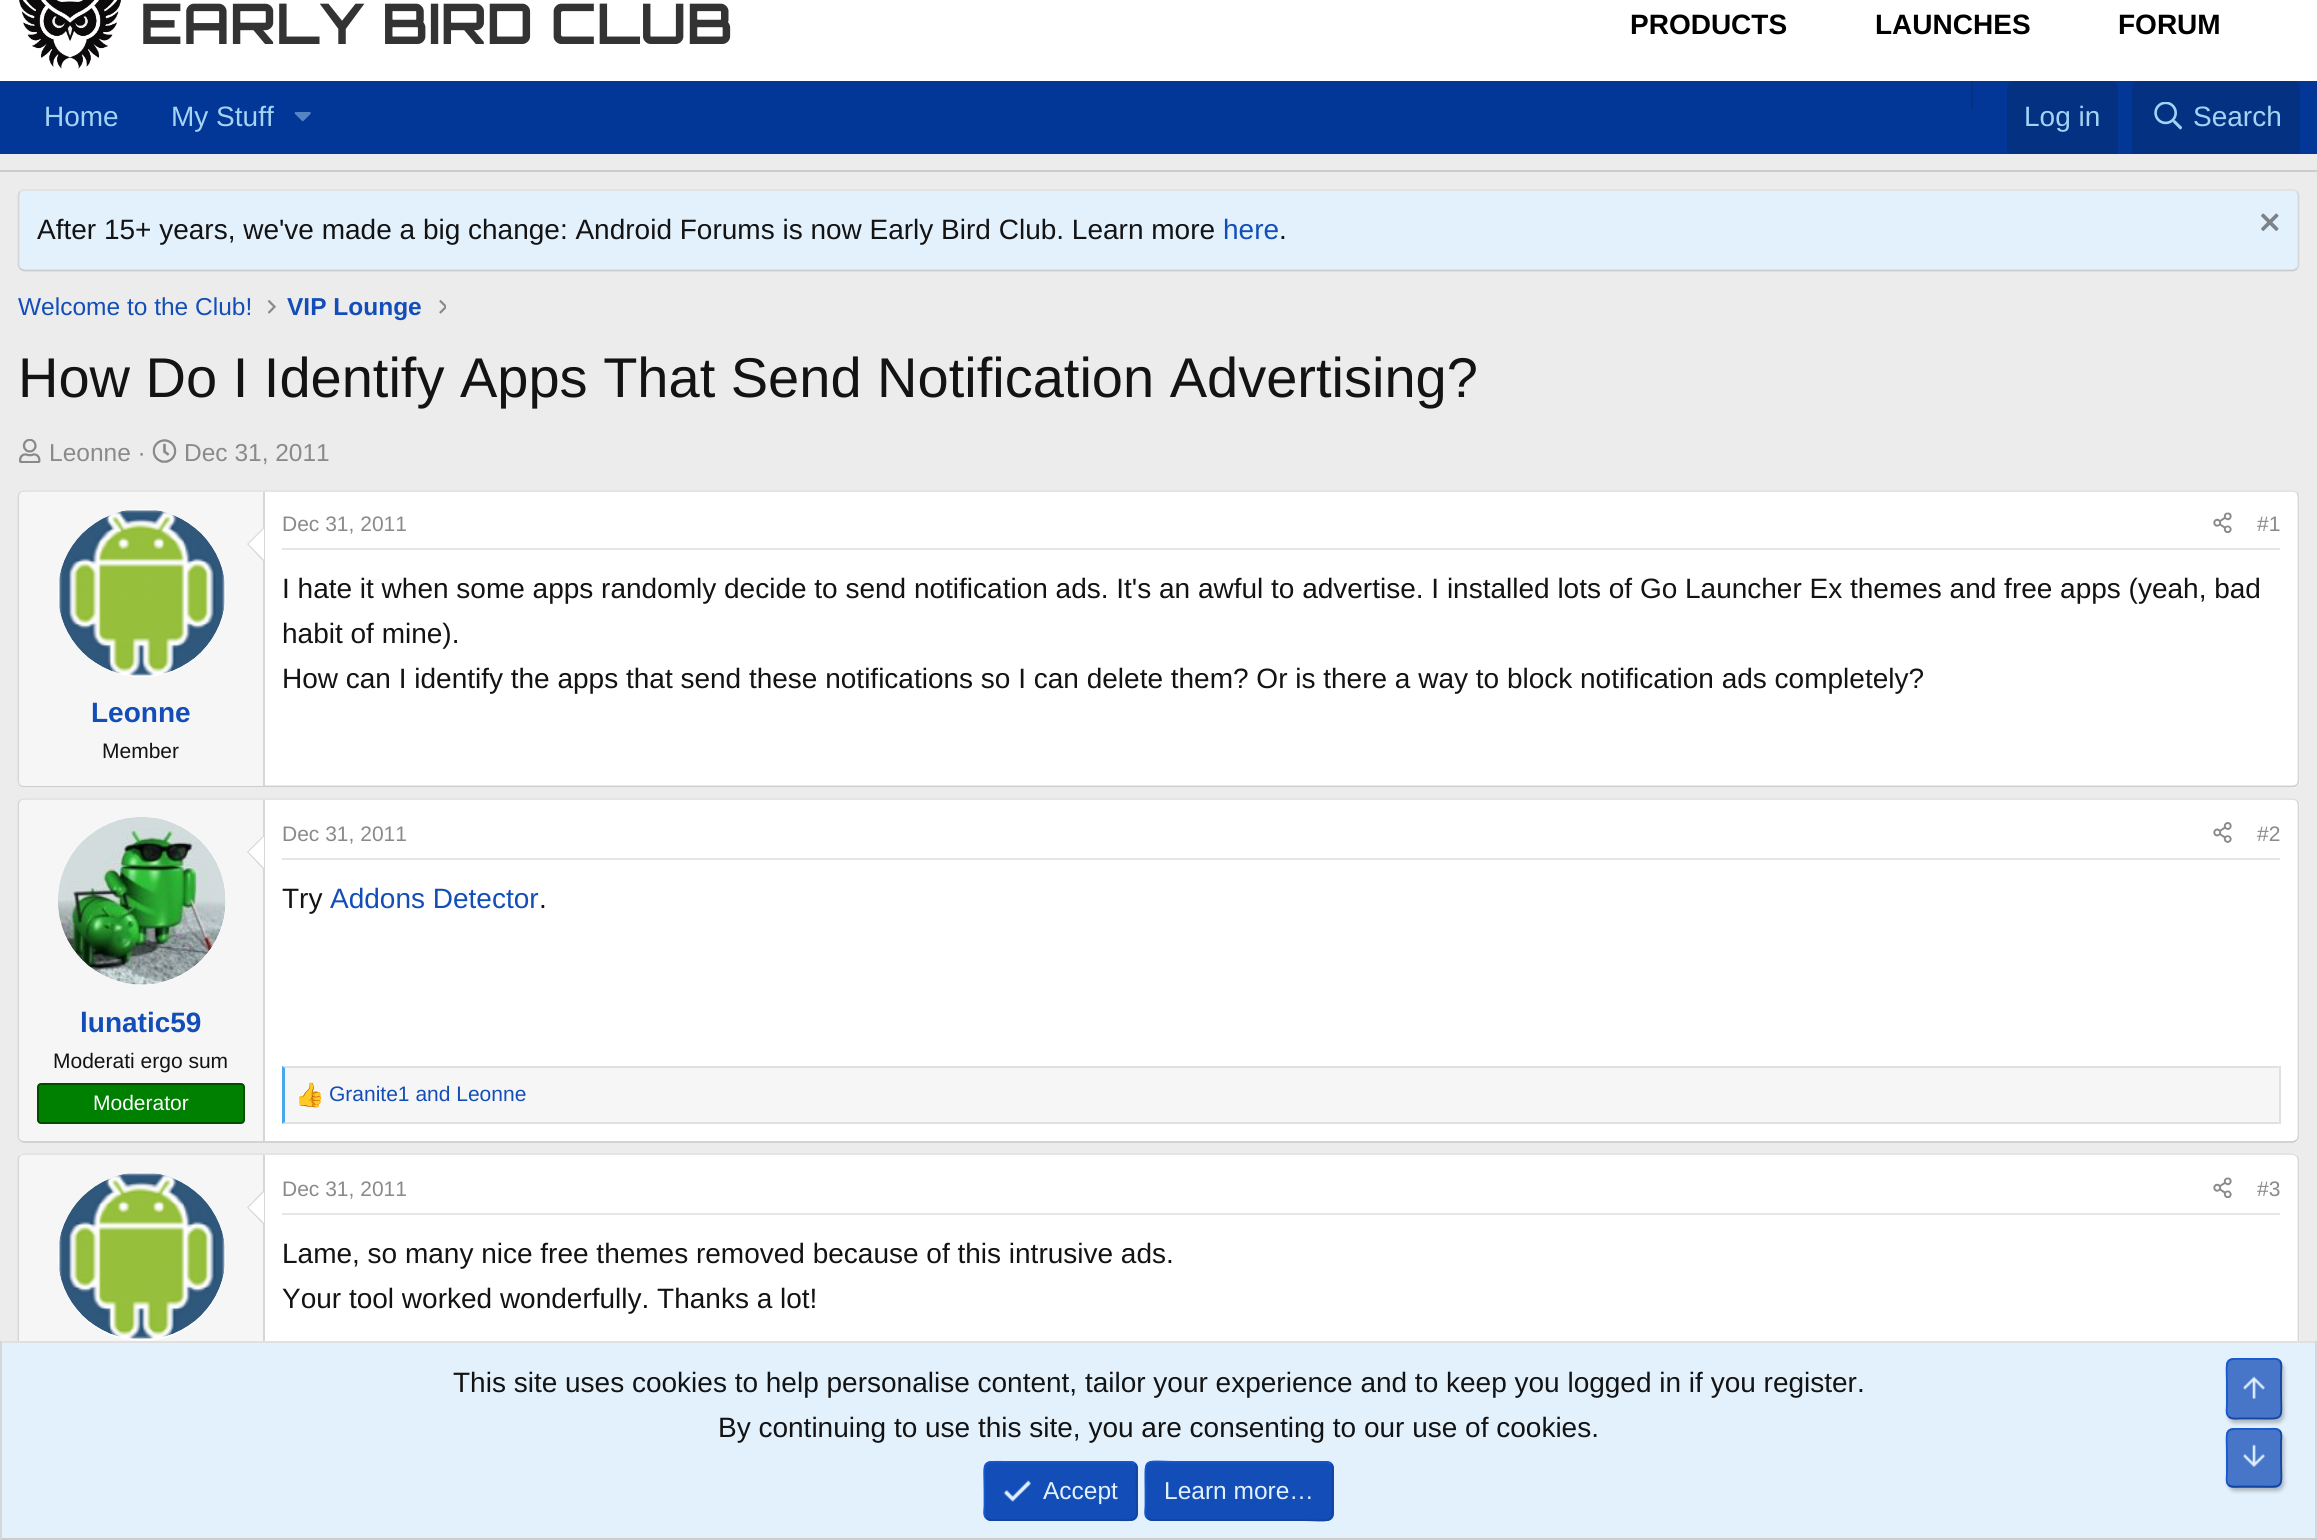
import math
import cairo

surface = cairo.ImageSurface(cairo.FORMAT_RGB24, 2317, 1540)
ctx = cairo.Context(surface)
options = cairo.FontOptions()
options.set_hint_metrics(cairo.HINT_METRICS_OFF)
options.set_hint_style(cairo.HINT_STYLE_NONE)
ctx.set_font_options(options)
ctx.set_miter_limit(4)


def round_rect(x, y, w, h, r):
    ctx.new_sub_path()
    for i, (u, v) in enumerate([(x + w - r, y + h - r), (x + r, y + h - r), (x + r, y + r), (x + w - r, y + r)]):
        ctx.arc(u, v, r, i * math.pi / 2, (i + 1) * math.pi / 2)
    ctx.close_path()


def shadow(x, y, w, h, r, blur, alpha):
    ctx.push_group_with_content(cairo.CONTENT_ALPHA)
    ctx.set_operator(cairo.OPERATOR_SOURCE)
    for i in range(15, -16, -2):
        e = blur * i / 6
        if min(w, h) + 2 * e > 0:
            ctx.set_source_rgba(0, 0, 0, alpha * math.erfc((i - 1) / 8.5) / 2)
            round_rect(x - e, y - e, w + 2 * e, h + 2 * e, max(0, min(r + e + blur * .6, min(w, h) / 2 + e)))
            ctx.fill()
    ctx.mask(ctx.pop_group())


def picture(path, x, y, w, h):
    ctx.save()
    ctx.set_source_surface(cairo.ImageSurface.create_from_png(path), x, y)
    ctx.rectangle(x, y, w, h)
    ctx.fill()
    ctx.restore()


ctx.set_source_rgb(0.922, 0.922, 0.922)
ctx.paint()
ctx.set_source_rgb(1, 1, 1)
ctx.rectangle(0, 0, 2317, 81)
ctx.fill()
picture("img1.png", 19, 0, 103, 69)
ctx.select_font_face("Orbitron", cairo.FONT_SLANT_NORMAL, cairo.FONT_WEIGHT_BOLD)
ctx.set_font_size(56)
ctx.set_source_rgb(0.2, 0.2, 0.2)
ctx.move_to(140, 44)
ctx.show_text("EARLY BIRD CLUB")
ctx.select_font_face("Liberation Sans", cairo.FONT_SLANT_NORMAL, cairo.FONT_WEIGHT_BOLD)
ctx.set_font_size(28)
ctx.set_source_rgb(0, 0, 0)
ctx.move_to(1630, 34)
ctx.show_text("PRODUCTS")
ctx.move_to(1875, 34)
ctx.show_text("LAUNCHES")
ctx.move_to(2118, 34)
ctx.show_text("FORUM")
ctx.set_source_rgb(0.008, 0.212, 0.592)
ctx.rectangle(0, 81, 2317, 73)
ctx.fill()
ctx.select_font_face("Liberation Sans")
ctx.set_source_rgb(0.639, 0.831, 0.961)
ctx.move_to(44, 126)
ctx.show_text("Home")
ctx.move_to(171, 126)
ctx.show_text("My Stuff")
picture("img2.png", 294, 112, 17, 10)
ctx.set_source_rgb(0.02, 0.192, 0.514)
ctx.rectangle(1971, 81, 2, 28)
ctx.fill()
ctx.new_path()
ctx.move_to(2014, 81)
ctx.line_to(2111, 81)
ctx.curve_to(2115, 81, 2118, 84, 2118, 88)
ctx.line_to(2118, 154)
ctx.line_to(2007, 154)
ctx.line_to(2007, 88)
ctx.curve_to(2007, 84, 2010, 81, 2014, 81)
ctx.close_path()
ctx.fill()
ctx.set_source_rgb(0.639, 0.831, 0.961)
ctx.move_to(2024, 126)
ctx.show_text("Log in")
ctx.set_source_rgb(0.02, 0.192, 0.514)
ctx.new_path()
ctx.move_to(2139, 81)
ctx.line_to(2293, 81)
ctx.curve_to(2297, 81, 2300, 84, 2300, 88)
ctx.line_to(2300, 154)
ctx.line_to(2132, 154)
ctx.line_to(2132, 88)
ctx.curve_to(2132, 84, 2135, 81, 2139, 81)
ctx.close_path()
ctx.fill()
picture("img3.png", 2154, 102, 28, 28)
ctx.set_source_rgb(0.639, 0.831, 0.961)
ctx.move_to(2193, 126)
ctx.show_text("Search")
ctx.set_source_rgb(0.8, 0.8, 0.8)
ctx.rectangle(0, 170, 2317, 2)
ctx.fill()
ctx.set_source_rgb(0.89, 0.945, 0.992)
round_rect(18, 189, 2282, 82, 7)
ctx.fill()
ctx.new_path()
ctx.move_to(20, 191.5)
ctx.curve_to(21.5, 190.5, 23, 190, 24.5, 190)
ctx.line_to(2292.5, 190)
ctx.curve_to(2294, 190, 2295.5, 190.5, 2297, 191.5)
ctx.set_source_rgb(0.878, 0.878, 0.878)
ctx.set_line_width(1.8)
ctx.stroke()
ctx.new_path()
ctx.move_to(2297, 191.5)
ctx.curve_to(2298, 193, 2298.5, 194.5, 2298.5, 196)
ctx.line_to(2298.5, 264)
ctx.curve_to(2298.5, 266, 2298, 267.5, 2297, 268.5)
ctx.set_source_rgb(0.839, 0.839, 0.839)
ctx.stroke()
ctx.new_path()
ctx.move_to(2297, 268.5)
ctx.curve_to(2295.5, 269.5, 2294, 270.5, 2292.5, 270.5)
ctx.line_to(24.5, 270.5)
ctx.curve_to(23, 270.5, 21.5, 269.5, 20, 268.5)
ctx.set_source_rgb(0.8, 0.8, 0.8)
ctx.stroke()
ctx.new_path()
ctx.move_to(20, 268.5)
ctx.curve_to(19, 267.5, 18.5, 266, 18.5, 264)
ctx.line_to(18.5, 196)
ctx.curve_to(18.5, 194.5, 19, 193, 20, 191.5)
ctx.set_source_rgb(0.839, 0.839, 0.839)
ctx.stroke()
ctx.set_source_rgb(0.078, 0.078, 0.078)
ctx.move_to(37, 239)
ctx.show_text("After 15+ years, we've made a big change: Android Forums is now Early Bird Club. Learn more")
ctx.set_source_rgb(0.078, 0.306, 0.722)
ctx.move_to(1223, 239)
ctx.show_text("here")
ctx.set_source_rgb(0.078, 0.078, 0.078)
ctx.move_to(1279, 239)
ctx.show_text(".")
picture("img4.png", 2261, 213, 18, 18)
ctx.set_font_size(24.5)
ctx.set_source_rgb(0.078, 0.306, 0.722)
ctx.move_to(18, 315)
ctx.show_text("Welcome to the Club!")
picture("img5.png", 268, 300, 8, 14)
ctx.select_font_face("Liberation Sans", cairo.FONT_SLANT_NORMAL, cairo.FONT_WEIGHT_BOLD)
ctx.move_to(287, 315)
ctx.show_text("VIP Lounge")
picture("img6.png", 439, 300, 7, 14)
ctx.select_font_face("Liberation Sans")
ctx.set_font_size(56)
ctx.set_source_rgb(0.078, 0.078, 0.078)
ctx.move_to(18, 397)
ctx.show_text("How Do I Identify Apps That Send Notification Advertising?")
picture("img7.png", 19, 439, 22, 24)
ctx.set_font_size(24.5)
ctx.set_source_rgb(0.541, 0.541, 0.541)
ctx.move_to(49, 461)
ctx.show_text("Leonne ·")
picture("img8.png", 152, 439, 25, 24)
ctx.move_to(184, 461)
ctx.show_text("Dec 31, 2011")
ctx.set_source_rgb(1, 1, 1)
round_rect(18, 490, 2282, 298, 7)
ctx.fill()
ctx.new_path()
ctx.move_to(20, 492.5)
ctx.curve_to(21.5, 491.5, 23, 491, 24.5, 491)
ctx.line_to(2292.5, 491)
ctx.curve_to(2294, 491, 2295.5, 491.5, 2297, 492.5)
ctx.set_source_rgb(0.878, 0.878, 0.878)
ctx.stroke()
ctx.new_path()
ctx.move_to(2297, 492.5)
ctx.curve_to(2298, 494, 2298.5, 495.5, 2298.5, 497)
ctx.line_to(2298.5, 780.5)
ctx.curve_to(2298.5, 782, 2298, 783.5, 2297, 785)
ctx.set_source_rgb(0.839, 0.839, 0.839)
ctx.stroke()
ctx.new_path()
ctx.move_to(2297, 785)
ctx.curve_to(2295.5, 786, 2294, 786.5, 2292.5, 786.5)
ctx.line_to(24.5, 786.5)
ctx.curve_to(23, 786.5, 21.5, 786, 20, 785)
ctx.set_source_rgb(0.8, 0.8, 0.8)
ctx.stroke()
ctx.new_path()
ctx.move_to(20, 785)
ctx.curve_to(19, 783.5, 18.5, 782, 18.5, 780.5)
ctx.line_to(18.5, 497)
ctx.curve_to(18.5, 495.5, 19, 494, 20, 492.5)
ctx.set_source_rgb(0.839, 0.839, 0.839)
ctx.stroke()
ctx.set_source_rgb(0.902, 0.902, 0.902)
ctx.rectangle(282, 548, 1998, 2)
ctx.fill()
ctx.set_font_size(21)
ctx.set_source_rgb(0.541, 0.541, 0.541)
ctx.move_to(282, 531)
ctx.show_text("Dec 31, 2011")
picture("img9.png", 2213, 512, 19, 21)
ctx.move_to(2257, 531)
ctx.show_text("#1")
ctx.set_font_size(28)
ctx.set_source_rgb(0.078, 0.078, 0.078)
ctx.move_to(282, 598)
ctx.show_text("I hate it when some apps randomly decide to send notification ads. It's an awful to advertise. I installed lots of Go Launcher Ex themes and free apps (yeah, bad")
ctx.move_to(282, 643)
ctx.show_text("habit of mine).")
ctx.move_to(282, 688)
ctx.show_text("How can I identify the apps that send these notifications so I can delete them? Or is there a way to block notification ads completely?")
ctx.set_source_rgb(0.961, 0.961, 0.961)
ctx.new_path()
ctx.move_to(24, 492)
ctx.line_to(264, 492)
ctx.line_to(264, 786)
ctx.line_to(24, 786)
ctx.curve_to(21, 786, 19, 784, 19, 781)
ctx.line_to(19, 497)
ctx.curve_to(19, 494, 21, 492, 24, 492)
ctx.close_path()
ctx.fill()
ctx.set_source_rgb(0.839, 0.839, 0.839)
ctx.rectangle(263, 492, 2, 294)
ctx.fill()
ctx.set_source_rgb(1, 1, 1)
ctx.arc(142, 593, 84, 0, 2 * math.pi)
ctx.fill()
picture("img10.png", 59, 510, 166, 166)
ctx.set_source_rgb(0.839, 0.839, 0.839)
ctx.new_path()
ctx.move_to(264, 527)
ctx.line_to(264, 562)
ctx.line_to(247, 544)
ctx.close_path()
ctx.fill()
ctx.set_source_rgb(1, 1, 1)
ctx.new_path()
ctx.move_to(264, 528.5)
ctx.line_to(264, 560)
ctx.line_to(248.5, 544)
ctx.close_path()
ctx.fill()
ctx.select_font_face("Liberation Sans", cairo.FONT_SLANT_NORMAL, cairo.FONT_WEIGHT_BOLD)
ctx.set_source_rgb(0.078, 0.306, 0.722)
ctx.move_to(91, 722)
ctx.show_text("Leonne")
ctx.select_font_face("Liberation Sans")
ctx.set_font_size(21)
ctx.set_source_rgb(0.078, 0.078, 0.078)
ctx.move_to(102, 758)
ctx.show_text("Member")
ctx.set_source_rgb(1, 1, 1)
round_rect(18, 798, 2282, 345, 7)
ctx.fill()
ctx.new_path()
ctx.move_to(20, 800.5)
ctx.curve_to(21.5, 799.5, 23, 799, 24.5, 799)
ctx.line_to(2292.5, 799)
ctx.curve_to(2294, 799, 2295.5, 799.5, 2297, 800.5)
ctx.set_source_rgb(0.878, 0.878, 0.878)
ctx.stroke()
ctx.new_path()
ctx.move_to(2297, 800.5)
ctx.curve_to(2298, 802, 2298.5, 803.5, 2298.5, 805)
ctx.line_to(2298.5, 1136)
ctx.curve_to(2298.5, 1137.5, 2298, 1139, 2297, 1140)
ctx.set_source_rgb(0.839, 0.839, 0.839)
ctx.stroke()
ctx.new_path()
ctx.move_to(2297, 1140)
ctx.curve_to(2295.5, 1141, 2294, 1142, 2292.5, 1142)
ctx.line_to(24.5, 1142)
ctx.curve_to(23, 1142, 21.5, 1141, 20, 1140)
ctx.set_source_rgb(0.8, 0.8, 0.8)
ctx.stroke()
ctx.new_path()
ctx.move_to(20, 1140)
ctx.curve_to(19, 1139, 18.5, 1137.5, 18.5, 1136)
ctx.line_to(18.5, 805)
ctx.curve_to(18.5, 803.5, 19, 802, 20, 800.5)
ctx.set_source_rgb(0.839, 0.839, 0.839)
ctx.stroke()
ctx.set_source_rgb(0.961, 0.961, 0.961)
ctx.new_path()
ctx.move_to(24, 800)
ctx.line_to(264, 800)
ctx.line_to(264, 1141)
ctx.line_to(24, 1141)
ctx.curve_to(21, 1141, 19, 1139, 19, 1136)
ctx.line_to(19, 805)
ctx.curve_to(19, 802, 21, 800, 24, 800)
ctx.close_path()
ctx.fill()
ctx.set_source_rgb(0.839, 0.839, 0.839)
ctx.rectangle(263, 800, 2, 341)
ctx.fill()
ctx.set_source_rgb(1, 1, 1)
ctx.arc(142, 901, 84, 0, 2 * math.pi)
ctx.fill()
picture("img11.png", 58, 817, 168, 168)
ctx.set_source_rgb(0.839, 0.839, 0.839)
ctx.new_path()
ctx.move_to(264, 835)
ctx.line_to(264, 870)
ctx.line_to(247, 852)
ctx.close_path()
ctx.fill()
ctx.set_source_rgb(1, 1, 1)
ctx.new_path()
ctx.move_to(264, 836.5)
ctx.line_to(264, 868)
ctx.line_to(248.5, 852)
ctx.close_path()
ctx.fill()
ctx.select_font_face("Liberation Sans", cairo.FONT_SLANT_NORMAL, cairo.FONT_WEIGHT_BOLD)
ctx.set_font_size(28)
ctx.set_source_rgb(0.078, 0.306, 0.722)
ctx.move_to(80, 1032)
ctx.show_text("lunatic59")
ctx.select_font_face("Liberation Sans")
ctx.set_font_size(21)
ctx.set_source_rgb(0.078, 0.078, 0.078)
ctx.move_to(53, 1068)
ctx.show_text("Moderati ergo sum")
ctx.set_source_rgb(0, 0.502, 0)
round_rect(38, 1084, 206, 39, 3)
ctx.fill_preserve()
ctx.set_source_rgb(0, 0.302, 0)
ctx.set_line_width(2)
ctx.stroke()
ctx.set_source_rgb(1, 1, 1)
ctx.move_to(93, 1110)
ctx.show_text("Moderator")
ctx.set_source_rgb(0.902, 0.902, 0.902)
ctx.rectangle(282, 858, 1998, 2)
ctx.fill()
ctx.set_source_rgb(0.541, 0.541, 0.541)
ctx.move_to(282, 841)
ctx.show_text("Dec 31, 2011")
picture("img12.png", 2213, 822, 19, 21)
ctx.move_to(2257, 841)
ctx.show_text("#2")
ctx.set_font_size(28)
ctx.set_source_rgb(0.078, 0.078, 0.078)
ctx.move_to(282, 908)
ctx.show_text("Try")
ctx.set_source_rgb(0.078, 0.306, 0.722)
ctx.move_to(330, 908)
ctx.show_text("Addons Detector")
ctx.set_source_rgb(0.078, 0.078, 0.078)
ctx.move_to(539, 908)
ctx.show_text(".")
ctx.set_source_rgb(0.961, 0.961, 0.961)
ctx.rectangle(285, 1068, 1994, 54)
ctx.fill()
ctx.set_source_rgb(0.878, 0.878, 0.878)
ctx.new_path()
ctx.move_to(282, 1066)
ctx.line_to(2280, 1066)
ctx.line_to(2278, 1068)
ctx.line_to(285, 1068)
ctx.close_path()
ctx.fill()
ctx.rectangle(2279, 1066, 2, 58)
ctx.fill()
ctx.new_path()
ctx.move_to(2280, 1124)
ctx.line_to(282, 1124)
ctx.line_to(285, 1122)
ctx.line_to(2278, 1122)
ctx.close_path()
ctx.fill()
ctx.set_source_rgb(0.278, 0.655, 0.922)
ctx.new_path()
ctx.move_to(282, 1124)
ctx.line_to(282, 1066)
ctx.line_to(285, 1068)
ctx.line_to(285, 1122)
ctx.close_path()
ctx.fill()
picture("img13.png", 299, 1082, 22, 26)
ctx.set_font_size(21)
ctx.set_source_rgb(0.078, 0.306, 0.722)
ctx.move_to(329, 1101)
ctx.show_text("Granite1 and Leonne")
ctx.set_source_rgb(1, 1, 1)
round_rect(18, 1153, 2282, 300, 7)
ctx.fill()
ctx.new_path()
ctx.move_to(20, 1156)
ctx.curve_to(21.5, 1155, 23, 1154, 24.5, 1154)
ctx.line_to(2292.5, 1154)
ctx.curve_to(2294, 1154, 2295.5, 1155, 2297, 1156)
ctx.set_source_rgb(0.878, 0.878, 0.878)
ctx.set_line_width(1.8)
ctx.stroke()
ctx.new_path()
ctx.move_to(2297, 1156)
ctx.curve_to(2298, 1157, 2298.5, 1158.5, 2298.5, 1160)
ctx.line_to(2298.5, 1445.5)
ctx.curve_to(2298.5, 1447, 2298, 1448.5, 2297, 1450)
ctx.set_source_rgb(0.839, 0.839, 0.839)
ctx.stroke()
ctx.new_path()
ctx.move_to(20, 1450)
ctx.curve_to(19, 1448.5, 18.5, 1447, 18.5, 1445.5)
ctx.line_to(18.5, 1160)
ctx.curve_to(18.5, 1158.5, 19, 1157, 20, 1156)
ctx.stroke()
ctx.set_source_rgb(0.961, 0.961, 0.961)
ctx.new_path()
ctx.move_to(24, 1155)
ctx.line_to(264, 1155)
ctx.line_to(264, 1451)
ctx.line_to(24, 1451)
ctx.curve_to(21, 1451, 19, 1449, 19, 1446)
ctx.line_to(19, 1160)
ctx.curve_to(19, 1157, 21, 1155, 24, 1155)
ctx.close_path()
ctx.fill()
ctx.set_source_rgb(0.839, 0.839, 0.839)
ctx.rectangle(263, 1155, 2, 186)
ctx.fill()
ctx.set_source_rgb(1, 1, 1)
ctx.arc(142, 1257, 84, 0, 2 * math.pi)
ctx.fill()
picture("img14.png", 59, 1172, 166, 167)
ctx.set_source_rgb(0.839, 0.839, 0.839)
ctx.new_path()
ctx.move_to(264, 1190)
ctx.line_to(264, 1225)
ctx.line_to(247, 1207.5)
ctx.close_path()
ctx.fill()
ctx.set_source_rgb(1, 1, 1)
ctx.new_path()
ctx.move_to(264, 1192)
ctx.line_to(264, 1223)
ctx.line_to(248.5, 1207.5)
ctx.close_path()
ctx.fill()
ctx.set_source_rgb(0.902, 0.902, 0.902)
ctx.rectangle(282, 1213, 1998, 2)
ctx.fill()
ctx.set_source_rgb(0.541, 0.541, 0.541)
ctx.move_to(282, 1196)
ctx.show_text("Dec 31, 2011")
picture("img9.png", 2213, 1177, 19, 21)
ctx.move_to(2257, 1196)
ctx.show_text("#3")
ctx.set_font_size(28)
ctx.set_source_rgb(0.078, 0.078, 0.078)
ctx.move_to(282, 1263)
ctx.show_text("Lame, so many nice free themes removed because of this intrusive ads.")
ctx.move_to(282, 1308)
ctx.show_text("Your tool worked wonderfully. Thanks a lot!")
ctx.set_source_rgb(0.89, 0.945, 0.992)
ctx.rectangle(2, 1343, 2313, 195)
ctx.fill()
ctx.set_source_rgb(0.878, 0.878, 0.878)
ctx.rectangle(0, 1341, 2317, 2)
ctx.fill()
ctx.set_source_rgb(0.839, 0.839, 0.839)
ctx.rectangle(2315, 1341, 2, 199)
ctx.fill()
ctx.set_source_rgb(0.8, 0.8, 0.8)
ctx.rectangle(0, 1538, 2317, 2)
ctx.fill()
ctx.set_source_rgb(0.839, 0.839, 0.839)
ctx.rectangle(0, 1341, 2, 199)
ctx.fill()
ctx.set_source_rgb(0.078, 0.078, 0.078)
ctx.move_to(453, 1392)
ctx.show_text("This site uses cookies to help personalise content, tailor your experience and to keep you logged in if you register.")
ctx.move_to(718, 1437)
ctx.show_text("By continuing to use this site, you are consenting to our use of cookies.")
ctx.set_source_rgb(0.078, 0.306, 0.722)
round_rect(984, 1461, 154, 60, 7)
ctx.fill()
ctx.new_path()
ctx.move_to(1135, 1464)
ctx.curve_to(1138, 1467, 1136.5, 1472.5, 1136.5, 1476)
ctx.line_to(1136.5, 1491)
ctx.curve_to(1136.5, 1524.5, 1142, 1520, 1107, 1520)
ctx.line_to(990.5, 1520)
ctx.curve_to(989, 1520, 987.5, 1519, 986, 1518)
ctx.set_source_rgb(0.071, 0.267, 0.631)
ctx.stroke()
ctx.new_path()
ctx.move_to(986, 1518)
ctx.curve_to(983, 1515, 984.5, 1509.5, 984.5, 1506)
ctx.line_to(984.5, 1491)
ctx.curve_to(984.5, 1457.5, 979, 1462, 1014, 1462)
ctx.line_to(1130.5, 1462)
ctx.curve_to(1132, 1462, 1133.5, 1463, 1135, 1464)
ctx.set_source_rgb(0.09, 0.341, 0.812)
ctx.stroke()
picture("img15.png", 1003, 1480, 28, 22)
ctx.set_font_size(24.5)
ctx.set_source_rgb(0.89, 0.945, 0.992)
ctx.move_to(1043, 1499)
ctx.show_text("Accept")
ctx.set_source_rgb(0.078, 0.306, 0.722)
round_rect(1145, 1461, 189, 60, 7)
ctx.fill()
ctx.new_path()
ctx.move_to(1331, 1464)
ctx.curve_to(1334, 1467, 1332.5, 1472.5, 1332.5, 1476)
ctx.line_to(1332.5, 1491)
ctx.curve_to(1332.5, 1527, 1337, 1520, 1297.5, 1520)
ctx.line_to(1151.5, 1520)
ctx.line_to(1147, 1518)
ctx.set_source_rgb(0.071, 0.267, 0.631)
ctx.stroke()
ctx.new_path()
ctx.move_to(1147, 1518)
ctx.curve_to(1144, 1515, 1145.5, 1509.5, 1145.5, 1506)
ctx.line_to(1145.5, 1491)
ctx.curve_to(1145.5, 1455, 1141, 1462, 1180.5, 1462)
ctx.line_to(1326.5, 1462)
ctx.line_to(1331, 1464)
ctx.set_source_rgb(0.09, 0.341, 0.812)
ctx.stroke()
ctx.set_source_rgb(0.89, 0.945, 0.992)
ctx.move_to(1164, 1499)
ctx.show_text("Learn more…")
ctx.save()
ctx.set_fill_rule(cairo.FILL_RULE_EVEN_ODD)
ctx.new_path()
ctx.move_to(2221, 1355)
ctx.line_to(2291, 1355)
ctx.line_to(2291, 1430)
ctx.line_to(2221, 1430)
ctx.close_path()
ctx.move_to(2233, 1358)
ctx.line_to(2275, 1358)
ctx.curve_to(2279, 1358, 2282, 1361, 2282, 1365)
ctx.line_to(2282, 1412)
ctx.curve_to(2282, 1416, 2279, 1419, 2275, 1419)
ctx.line_to(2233, 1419)
ctx.curve_to(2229, 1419, 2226, 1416, 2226, 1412)
ctx.line_to(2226, 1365)
ctx.curve_to(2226, 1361, 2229, 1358, 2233, 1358)
ctx.close_path()
ctx.clip()
ctx.set_source_rgb(0, 0, 0)
shadow(2228, 1362, 56, 61, 7, 2, 0.25)
ctx.restore()
ctx.set_source_rgba(0.078, 0.306, 0.722, 0.75)
round_rect(2226, 1358, 56, 61, 7)
ctx.fill()
ctx.new_path()
ctx.move_to(2279.5, 1360.5)
ctx.curve_to(2282.5, 1363.5, 2281, 1369.5, 2281, 1373)
ctx.line_to(2281, 1388.5)
ctx.curve_to(2281, 1422.5, 2286.5, 1418.5, 2254, 1418.5)
ctx.line_to(2240, 1418.5)
ctx.curve_to(2236.5, 1418.5, 2231.5, 1419.5, 2228.5, 1416.5)
ctx.set_source_rgb(0.071, 0.267, 0.631)
ctx.stroke()
ctx.new_path()
ctx.move_to(2228.5, 1416.5)
ctx.curve_to(2225.5, 1413.5, 2227, 1407.5, 2227, 1404.5)
ctx.line_to(2227, 1388.5)
ctx.curve_to(2227, 1355, 2221.5, 1359, 2254, 1359)
ctx.line_to(2268, 1359)
ctx.curve_to(2271.5, 1359, 2276.5, 1358, 2279.5, 1360.5)
ctx.set_source_rgb(0.09, 0.341, 0.812)
ctx.stroke()
picture("img16.png", 2242, 1376, 23, 23)
ctx.save()
ctx.set_fill_rule(cairo.FILL_RULE_EVEN_ODD)
ctx.new_path()
ctx.move_to(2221, 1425)
ctx.line_to(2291, 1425)
ctx.line_to(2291, 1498)
ctx.line_to(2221, 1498)
ctx.close_path()
ctx.move_to(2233, 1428)
ctx.line_to(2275, 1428)
ctx.curve_to(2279, 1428, 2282, 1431, 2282, 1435)
ctx.line_to(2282, 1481)
ctx.curve_to(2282, 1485, 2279, 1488, 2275, 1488)
ctx.line_to(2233, 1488)
ctx.curve_to(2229, 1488, 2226, 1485, 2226, 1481)
ctx.line_to(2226, 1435)
ctx.curve_to(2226, 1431, 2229, 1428, 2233, 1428)
ctx.close_path()
ctx.clip()
ctx.set_source_rgb(0, 0, 0)
shadow(2228, 1432, 56, 59, 7, 2, 0.25)
ctx.restore()
ctx.set_source_rgba(0.078, 0.306, 0.722, 0.75)
round_rect(2226, 1428, 56, 60, 7)
ctx.fill()
ctx.new_path()
ctx.move_to(2279.5, 1430.5)
ctx.curve_to(2282.5, 1433.5, 2281, 1439, 2281, 1442.5)
ctx.line_to(2281, 1458)
ctx.curve_to(2281, 1490.5, 2286.5, 1486.5, 2254, 1486.5)
ctx.line_to(2240, 1486.5)
ctx.curve_to(2236.5, 1486.5, 2231.5, 1487.5, 2228.5, 1485)
ctx.set_source_rgb(0.071, 0.267, 0.631)
ctx.stroke()
ctx.new_path()
ctx.move_to(2228.5, 1485)
ctx.curve_to(2225.5, 1482, 2227, 1476.5, 2227, 1473)
ctx.line_to(2227, 1458)
ctx.curve_to(2227, 1425, 2221.5, 1429, 2254, 1429)
ctx.line_to(2268, 1429)
ctx.curve_to(2271.5, 1429, 2276.5, 1428, 2279.5, 1430.5)
ctx.set_source_rgb(0.09, 0.341, 0.812)
ctx.stroke()
picture("img17.png", 2243, 1444, 22, 24)
surface.write_to_png("page.png")
